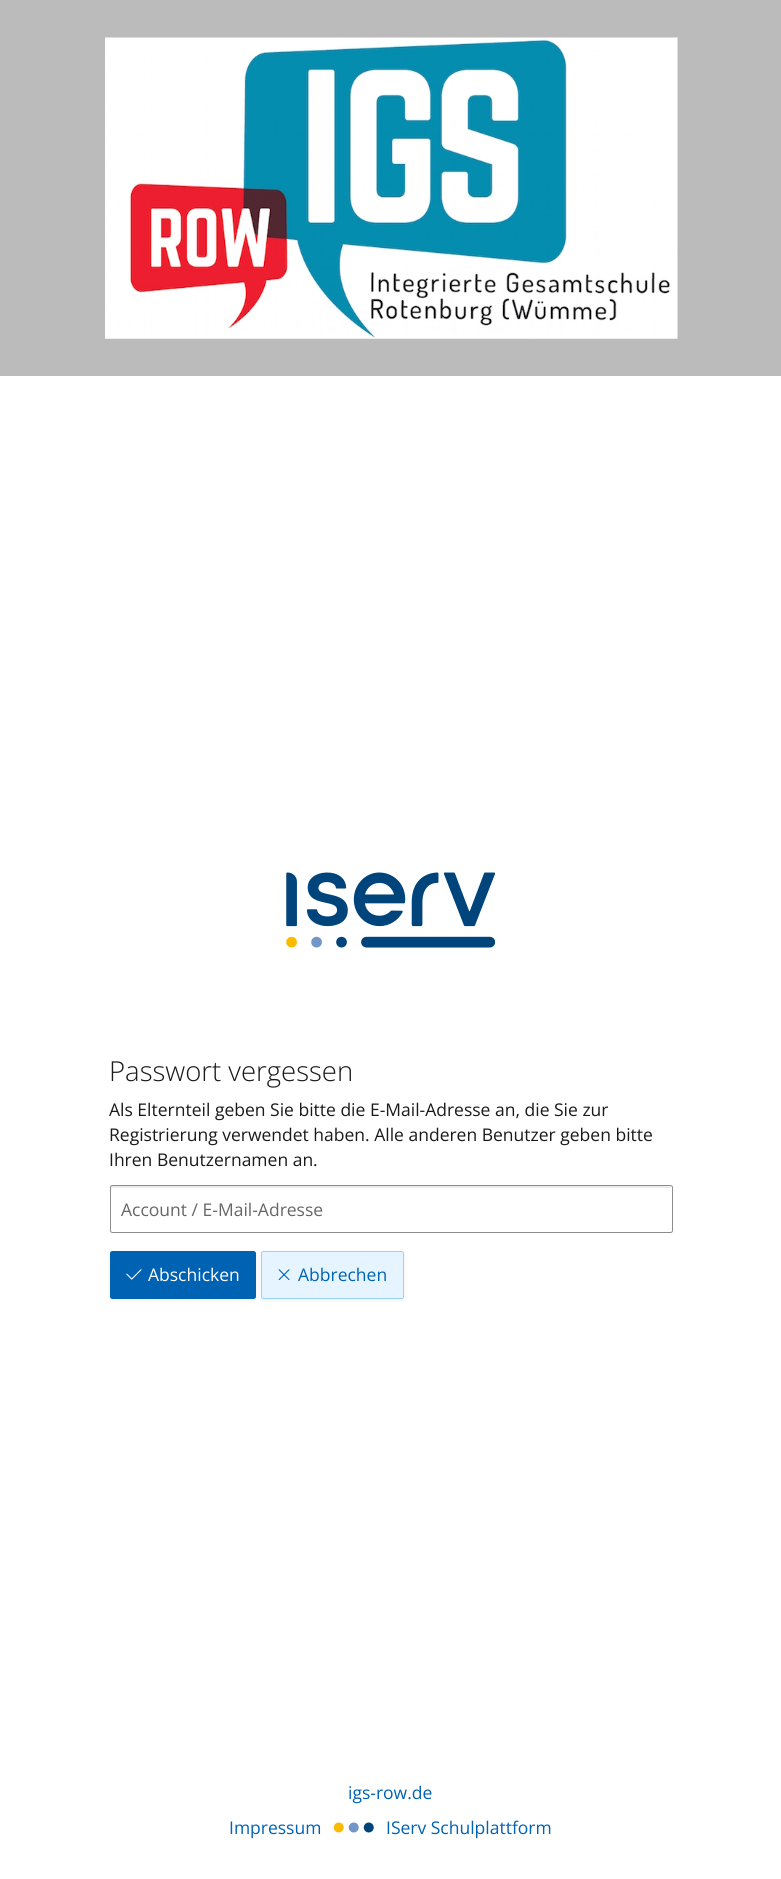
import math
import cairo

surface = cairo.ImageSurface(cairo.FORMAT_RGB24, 781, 1879)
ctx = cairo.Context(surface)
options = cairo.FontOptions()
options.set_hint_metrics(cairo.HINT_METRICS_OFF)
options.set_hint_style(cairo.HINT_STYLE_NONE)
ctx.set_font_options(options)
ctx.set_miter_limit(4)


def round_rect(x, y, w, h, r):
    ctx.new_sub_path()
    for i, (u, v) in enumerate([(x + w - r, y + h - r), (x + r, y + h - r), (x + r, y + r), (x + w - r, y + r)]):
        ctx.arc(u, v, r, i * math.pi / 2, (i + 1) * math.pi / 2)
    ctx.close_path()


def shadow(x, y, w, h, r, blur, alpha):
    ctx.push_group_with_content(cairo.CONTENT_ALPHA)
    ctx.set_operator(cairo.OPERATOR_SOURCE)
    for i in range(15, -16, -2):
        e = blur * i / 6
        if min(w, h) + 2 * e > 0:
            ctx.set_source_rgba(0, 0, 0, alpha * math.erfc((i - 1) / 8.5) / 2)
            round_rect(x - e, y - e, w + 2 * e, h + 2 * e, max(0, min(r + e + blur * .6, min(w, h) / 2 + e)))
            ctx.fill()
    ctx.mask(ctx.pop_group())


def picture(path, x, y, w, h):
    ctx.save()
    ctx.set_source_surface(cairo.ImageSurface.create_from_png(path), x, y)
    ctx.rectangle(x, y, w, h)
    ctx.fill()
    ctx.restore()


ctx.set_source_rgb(1, 1, 1)
ctx.paint()
ctx.set_source_rgb(0.733, 0.733, 0.733)
ctx.rectangle(0, 0, 781, 376)
ctx.fill()
picture("img1.png", 105, 37, 573, 302)
picture("img2.png", 286, 872, 209, 76)
ctx.select_font_face("Open Sans Light")
ctx.set_font_size(27.5)
ctx.set_source_rgb(0.102, 0.102, 0.102)
ctx.move_to(109, 1081)
ctx.show_text("Passwort vergessen")
ctx.select_font_face("Open Sans")
ctx.set_font_size(17.5)
ctx.move_to(109, 1116)
ctx.show_text("Als Elternteil geben Sie bitte die E-Mail-Adresse an, die Sie zur")
ctx.move_to(109, 1141)
ctx.show_text("Registrierung verwendet haben. Alle anderen Benutzer geben bitte")
ctx.move_to(109, 1166)
ctx.show_text("Ihren Benutzernamen an.")
ctx.set_source_rgb(0.925, 0.925, 0.925)
ctx.new_path()
ctx.move_to(112, 1188)
ctx.line_to(670, 1188)
ctx.curve_to(671, 1188, 671, 1188, 671, 1189)
ctx.curve_to(671, 1188, 671, 1186, 670, 1186)
ctx.line_to(112, 1186)
ctx.line_to(111, 1186)
ctx.line_to(111, 1189)
ctx.close_path()
ctx.fill()
round_rect(110.5, 1185.5, 562, 47, 2)
ctx.set_source_rgb(0.549, 0.549, 0.549)
ctx.set_line_width(1)
ctx.stroke()
ctx.set_source_rgb(0.4, 0.4, 0.4)
ctx.move_to(121, 1216)
ctx.show_text("Account / E-Mail-Adresse")
ctx.set_source_rgb(0, 0, 0)
shadow(110, 1253, 146, 47, 2.5, 2, 0.08)
ctx.set_source_rgb(0, 0.384, 0.702)
round_rect(110.5, 1251.5, 145, 47, 2)
ctx.fill_preserve()
ctx.stroke()
picture("img3.png", 126, 1269, 16, 11)
ctx.set_source_rgb(1, 1, 1)
ctx.move_to(148, 1281)
ctx.show_text("Abschicken")
ctx.set_source_rgb(0, 0, 0)
shadow(261, 1253, 143, 47, 2.5, 2, 0.08)
ctx.set_source_rgb(0.902, 0.957, 1)
round_rect(261.5, 1251.5, 142, 47, 2)
ctx.fill_preserve()
ctx.set_source_rgb(0.6, 0.82, 1)
ctx.stroke()
picture("img4.png", 278, 1269, 12, 12)
ctx.set_source_rgb(0, 0.384, 0.702)
ctx.move_to(298, 1281)
ctx.show_text("Abbrechen")
ctx.move_to(348, 1799)
ctx.show_text("igs-row.de")
ctx.move_to(229, 1834)
ctx.show_text("Impressum")
picture("img5.png", 333, 1822, 11, 11)
picture("img6.png", 348, 1822, 11, 11)
picture("img7.png", 363, 1822, 11, 11)
ctx.move_to(386, 1834)
ctx.show_text("IServ Schulplattform")
surface.write_to_png("page.png")
